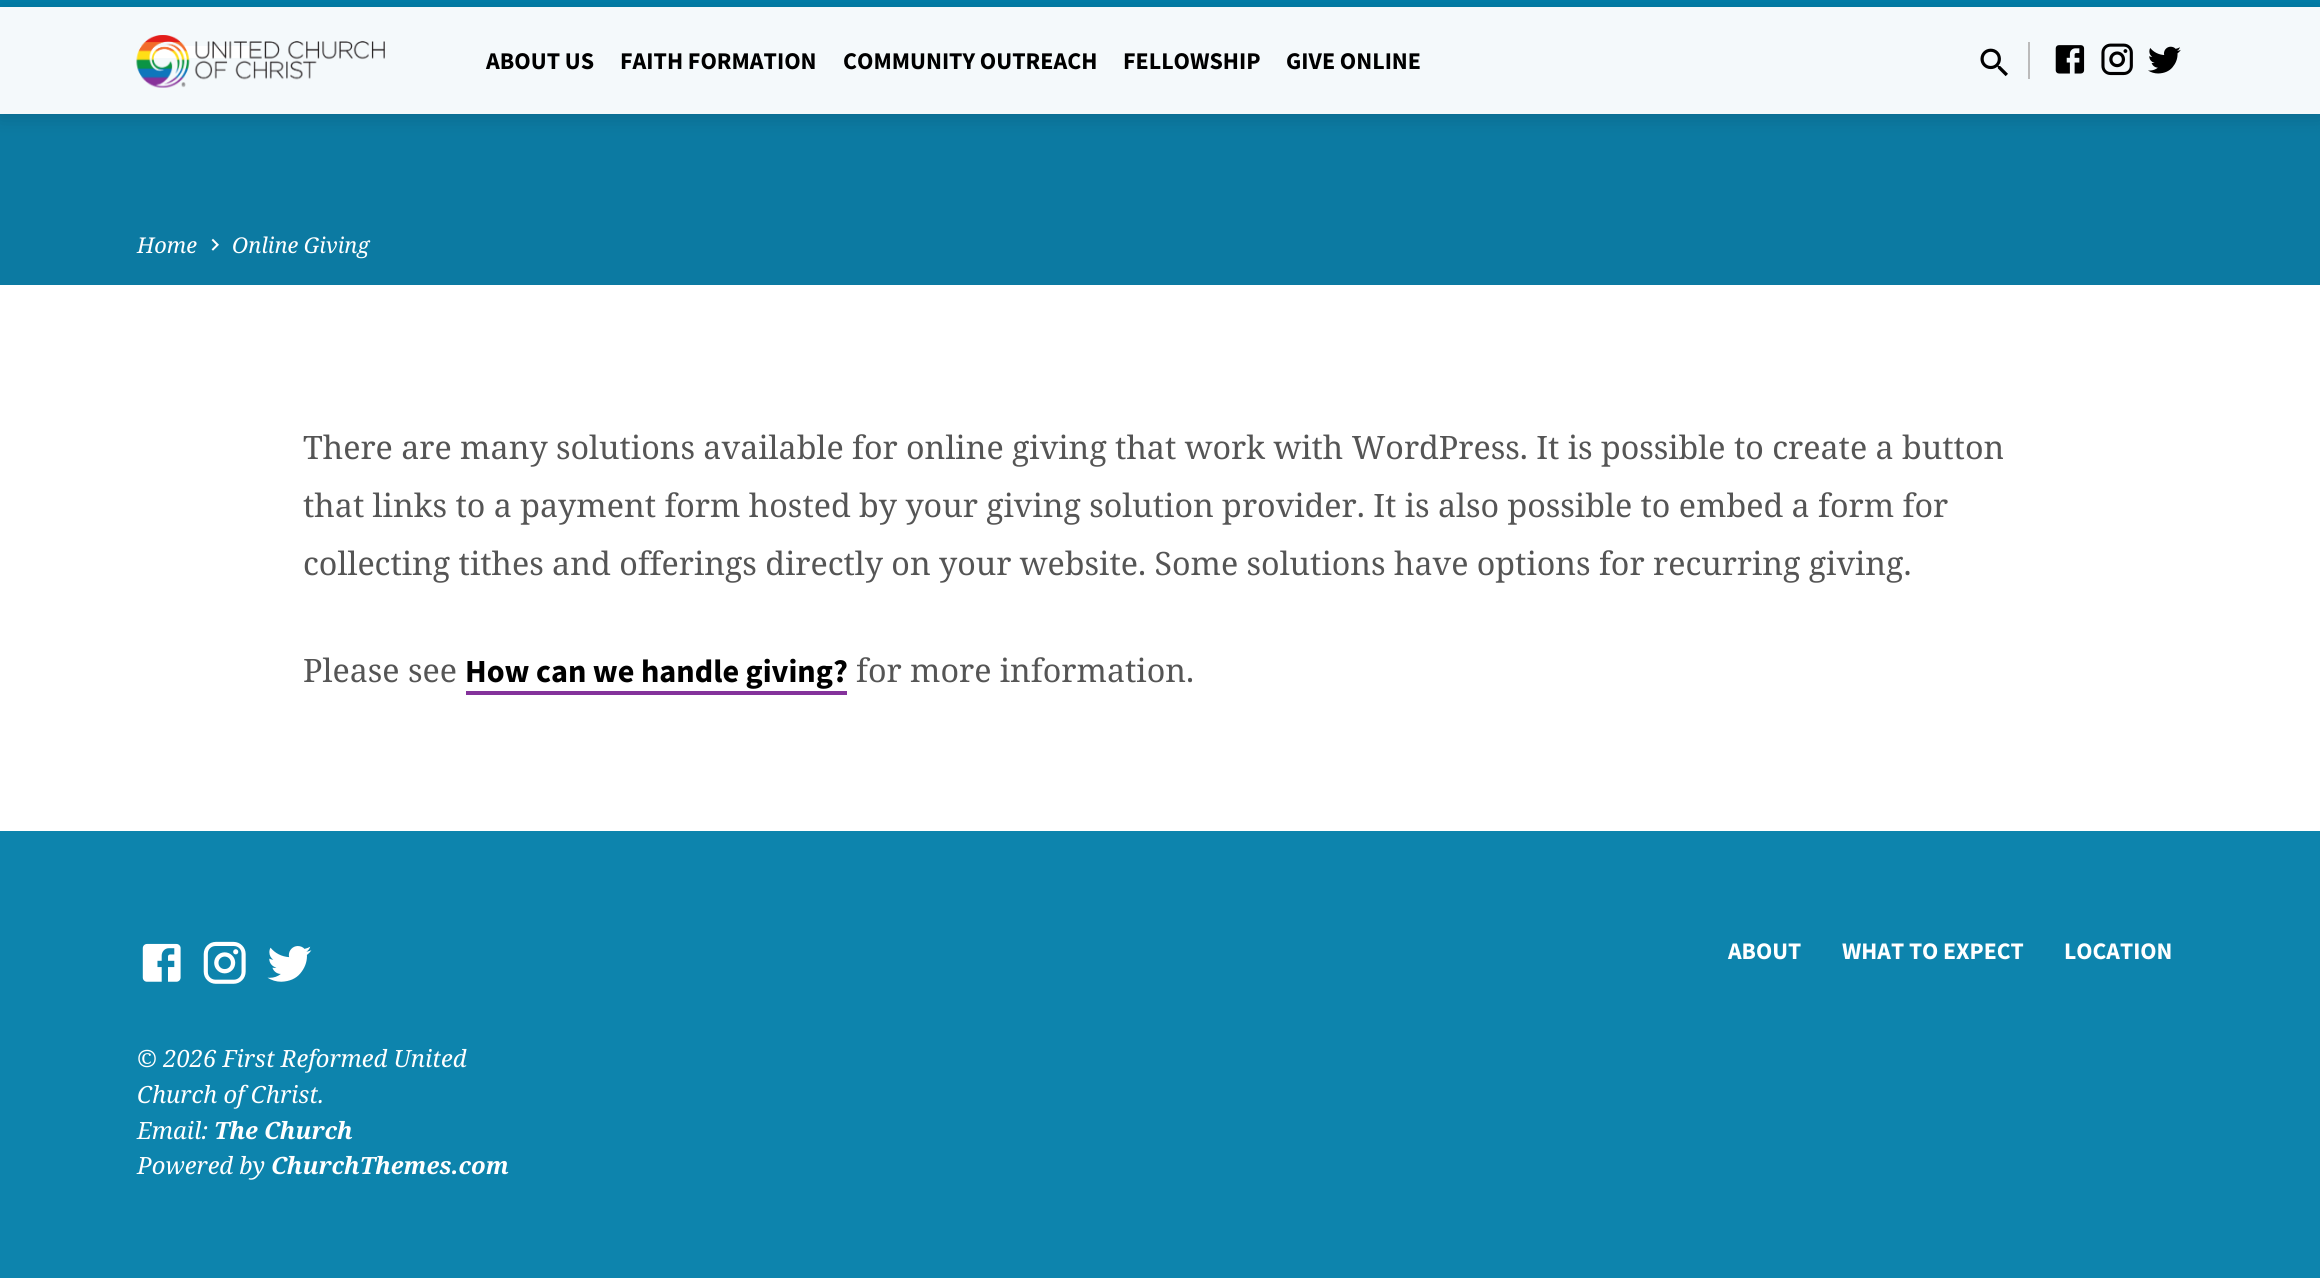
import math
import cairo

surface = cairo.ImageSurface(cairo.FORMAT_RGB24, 2320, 1278)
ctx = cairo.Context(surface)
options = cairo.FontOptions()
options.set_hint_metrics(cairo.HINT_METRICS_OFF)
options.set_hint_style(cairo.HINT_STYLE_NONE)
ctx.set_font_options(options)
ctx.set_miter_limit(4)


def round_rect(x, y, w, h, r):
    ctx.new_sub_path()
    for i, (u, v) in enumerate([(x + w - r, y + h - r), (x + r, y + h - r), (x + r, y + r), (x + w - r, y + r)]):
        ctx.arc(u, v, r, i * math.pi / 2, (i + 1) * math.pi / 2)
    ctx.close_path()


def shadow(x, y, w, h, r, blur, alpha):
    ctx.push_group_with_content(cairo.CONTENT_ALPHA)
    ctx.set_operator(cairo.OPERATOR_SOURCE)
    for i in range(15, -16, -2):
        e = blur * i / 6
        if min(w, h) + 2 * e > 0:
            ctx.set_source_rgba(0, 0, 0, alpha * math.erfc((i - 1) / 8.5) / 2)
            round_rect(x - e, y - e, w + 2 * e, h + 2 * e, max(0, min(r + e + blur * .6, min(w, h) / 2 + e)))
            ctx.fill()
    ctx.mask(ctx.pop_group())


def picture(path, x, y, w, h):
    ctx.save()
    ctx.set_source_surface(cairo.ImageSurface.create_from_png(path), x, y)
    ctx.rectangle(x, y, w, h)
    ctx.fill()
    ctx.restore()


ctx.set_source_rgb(1, 1, 1)
ctx.paint()
ctx.set_source_rgb(0.004, 0.494, 0.663)
ctx.rectangle(0, 0, 2320, 7)
ctx.fill()
ctx.set_source_rgb(0.047, 0.478, 0.635)
ctx.rectangle(0, 7, 2320, 278)
ctx.fill()
ctx.set_source_rgb(1, 1, 1)
ctx.rectangle(140, 46, 112, 12)
ctx.fill()
ctx.set_source_rgba(1, 1, 1, 0.95)
ctx.rectangle(0, 7, 2320, 107)
ctx.fill()
ctx.save()
ctx.set_fill_rule(cairo.FILL_RULE_EVEN_ODD)
ctx.new_path()
ctx.move_to(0, 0)
ctx.line_to(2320, 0)
ctx.line_to(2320, 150)
ctx.line_to(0, 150)
ctx.close_path()
ctx.move_to(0, 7)
ctx.line_to(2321, 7)
ctx.line_to(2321, 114)
ctx.line_to(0, 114)
ctx.close_path()
ctx.clip()
ctx.set_source_rgb(0, 0, 0)
shadow(0, 11, 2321, 106, 0, 10.5, 0.14)
ctx.restore()
picture("img1.png", 136, 35, 249, 53)
ctx.select_font_face("Source Sans Pro", cairo.FONT_SLANT_NORMAL, cairo.FONT_WEIGHT_BOLD)
ctx.set_font_size(24)
ctx.set_source_rgb(0, 0, 0)
ctx.move_to(486, 69)
ctx.show_text("ABOUT US")
ctx.move_to(620, 69)
ctx.show_text("FAITH FORMATION")
ctx.move_to(843, 69)
ctx.show_text("COMMUNITY OUTREACH")
ctx.move_to(1123, 69)
ctx.show_text("FELLOWSHIP")
ctx.move_to(1286, 69)
ctx.show_text("GIVE ONLINE")
picture("img2.png", 1980, 48, 28, 29)
ctx.set_source_rgb(0.733, 0.733, 0.733)
ctx.rectangle(2028, 42, 2, 37)
ctx.fill()
picture("img3.png", 2055, 45, 30, 29)
picture("img4.png", 2101, 43, 32, 33)
picture("img5.png", 2148, 46, 33, 28)
ctx.select_font_face("Noto Serif", cairo.FONT_SLANT_ITALIC)
ctx.set_font_size(21.75)
ctx.set_source_rgb(1, 1, 1)
ctx.move_to(137, 253)
ctx.show_text("Home")
picture("img6.png", 211, 238, 8, 13)
ctx.move_to(232, 253)
ctx.show_text("Online Giving")
ctx.select_font_face("Noto Serif")
ctx.set_font_size(32.2)
ctx.set_source_rgb(0.333, 0.333, 0.333)
ctx.move_to(303, 459)
ctx.show_text("There are many solutions available for online giving that work with WordPress. It is possible to create a button")
ctx.move_to(303, 517)
ctx.show_text("that links to a payment form hosted by your giving solution provider. It is also possible to embed a form for")
ctx.move_to(303, 575)
ctx.show_text("collecting tithes and offerings directly on your website. Some solutions have options for recurring giving.")
ctx.move_to(303, 682)
ctx.show_text("Please see")
ctx.select_font_face("Source Sans Pro", cairo.FONT_SLANT_NORMAL, cairo.FONT_WEIGHT_BOLD)
ctx.set_source_rgb(0, 0, 0)
ctx.move_to(465, 682)
ctx.show_text("How can we handle giving?")
ctx.set_source_rgb(0.518, 0.196, 0.608)
ctx.rectangle(466, 691, 381, 4)
ctx.fill()
ctx.select_font_face("Noto Serif")
ctx.set_source_rgb(0.333, 0.333, 0.333)
ctx.move_to(856, 682)
ctx.show_text("for more information.")
ctx.set_source_rgb(0.051, 0.518, 0.678)
ctx.rectangle(0, 831, 2320, 447)
ctx.fill()
ctx.select_font_face("Source Sans Pro", cairo.FONT_SLANT_NORMAL, cairo.FONT_WEIGHT_BOLD)
ctx.set_font_size(23.75)
ctx.set_source_rgb(1, 1, 1)
ctx.move_to(1728, 959)
ctx.show_text("ABOUT")
ctx.move_to(1842, 959)
ctx.show_text("WHAT TO EXPECT")
ctx.move_to(2064, 959)
ctx.show_text("LOCATION")
picture("img7.png", 142, 943, 39, 39)
picture("img8.png", 203, 941, 43, 43)
picture("img9.png", 267, 946, 45, 36)
ctx.select_font_face("Noto Serif", cairo.FONT_SLANT_ITALIC)
ctx.move_to(137, 1067)
ctx.show_text("© 2026 First Reformed United")
ctx.move_to(137, 1103)
ctx.show_text("Church of Christ.")
ctx.move_to(137, 1139)
ctx.show_text("Email:")
ctx.select_font_face("Noto Serif", cairo.FONT_SLANT_ITALIC, cairo.FONT_WEIGHT_BOLD)
ctx.move_to(214, 1139)
ctx.show_text("The Church")
ctx.select_font_face("Noto Serif", cairo.FONT_SLANT_ITALIC)
ctx.move_to(137, 1174)
ctx.show_text("Powered by")
ctx.select_font_face("Noto Serif", cairo.FONT_SLANT_ITALIC, cairo.FONT_WEIGHT_BOLD)
ctx.move_to(271, 1174)
ctx.show_text("ChurchThemes.com")
surface.write_to_png("page.png")
